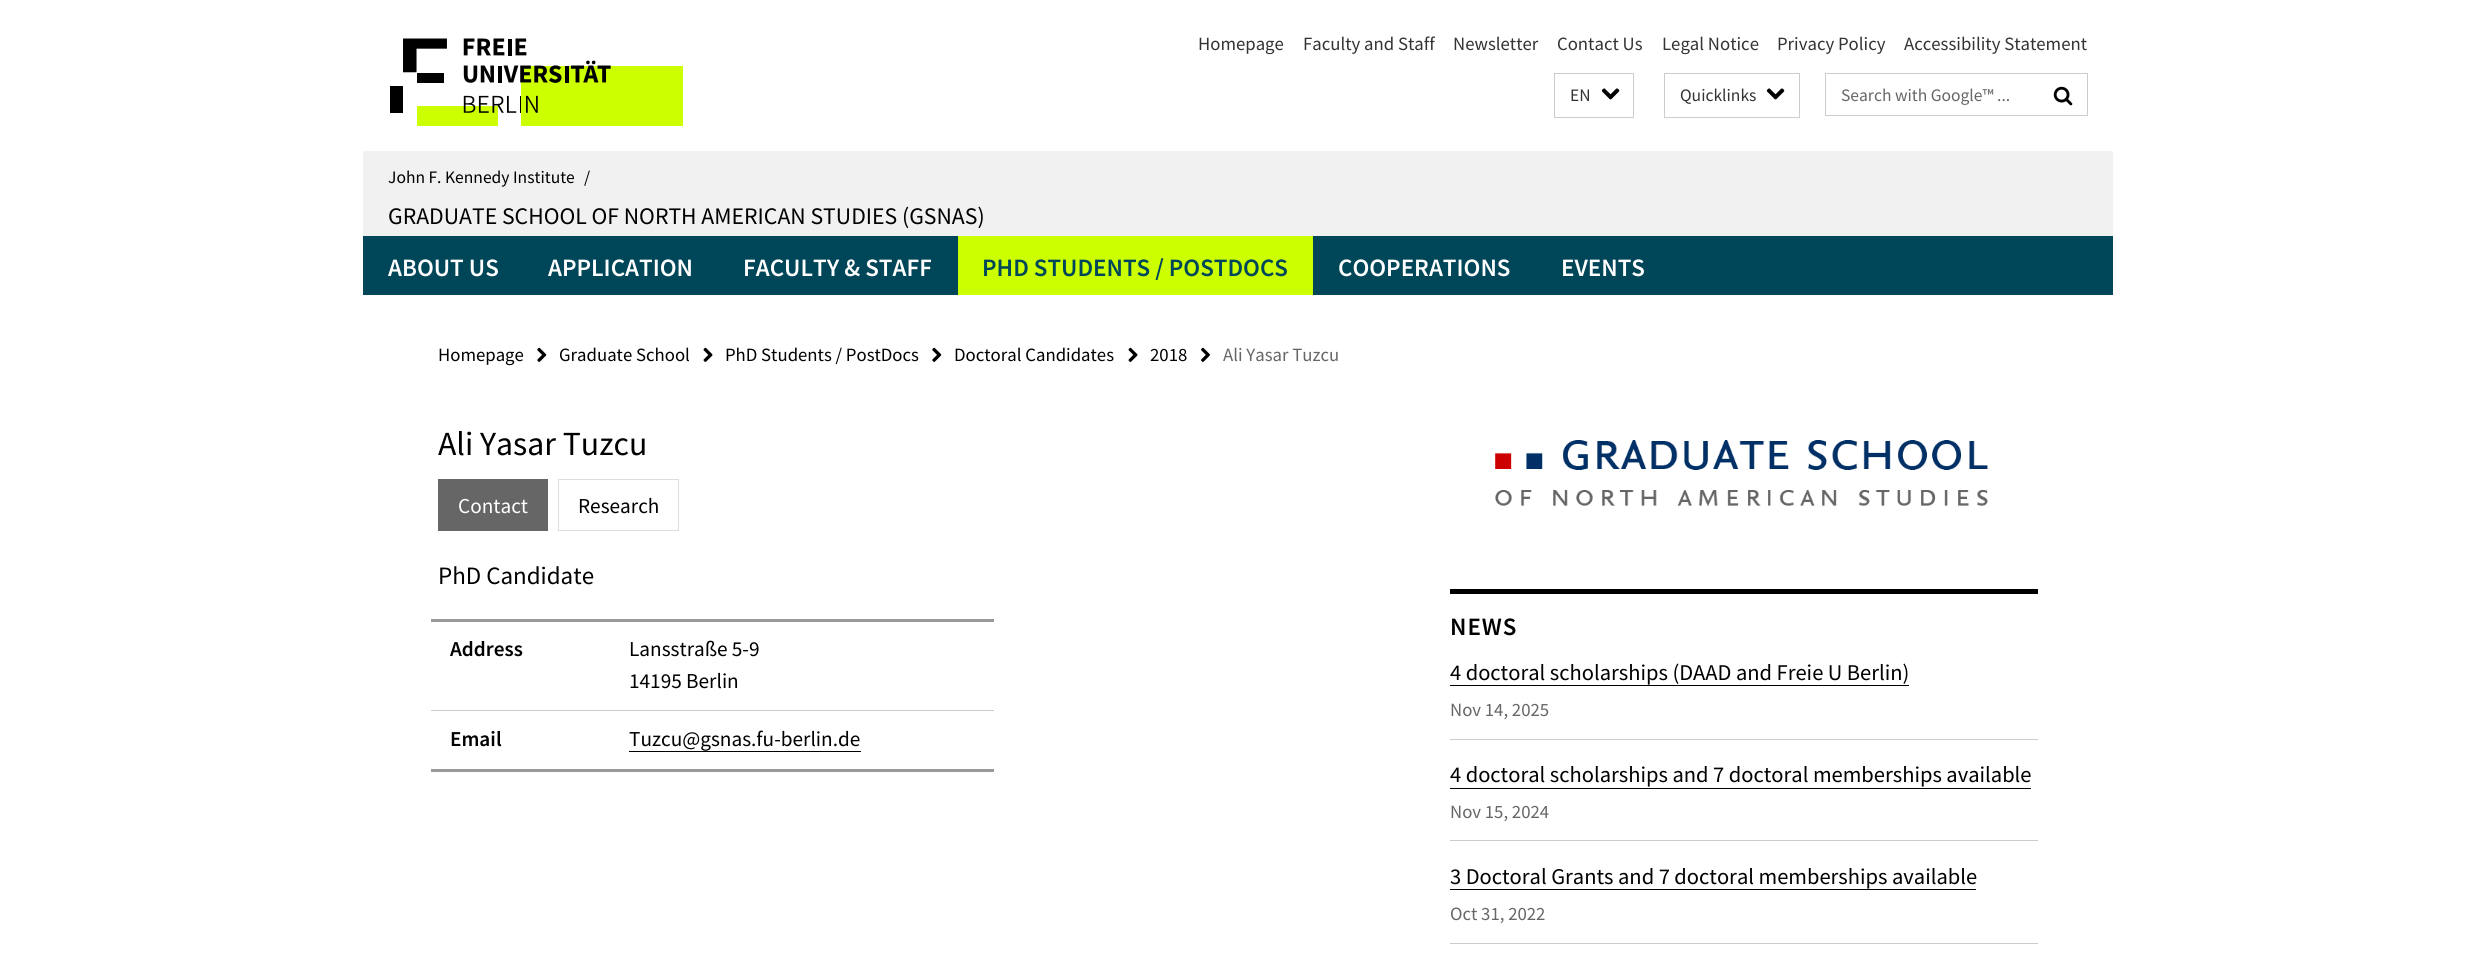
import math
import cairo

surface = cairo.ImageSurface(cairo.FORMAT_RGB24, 2475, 955)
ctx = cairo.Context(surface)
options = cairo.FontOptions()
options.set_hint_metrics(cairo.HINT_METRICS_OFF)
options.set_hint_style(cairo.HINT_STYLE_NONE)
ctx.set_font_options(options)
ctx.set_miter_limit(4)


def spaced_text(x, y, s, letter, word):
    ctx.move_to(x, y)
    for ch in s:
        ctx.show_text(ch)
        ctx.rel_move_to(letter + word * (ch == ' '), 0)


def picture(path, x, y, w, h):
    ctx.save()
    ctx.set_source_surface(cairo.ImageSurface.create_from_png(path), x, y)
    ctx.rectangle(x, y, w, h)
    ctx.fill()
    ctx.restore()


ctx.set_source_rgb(1, 1, 1)
ctx.paint()
picture("img1.png", 390, 38, 293, 88)
ctx.select_font_face("Source Sans Pro")
ctx.set_font_size(18.75)
ctx.set_source_rgb(0.2, 0.2, 0.2)
ctx.move_to(1198, 50)
ctx.show_text("Homepage")
ctx.move_to(1303, 50)
ctx.show_text("Faculty and Staff")
ctx.move_to(1453, 50)
ctx.show_text("Newsletter")
ctx.move_to(1557, 50)
ctx.show_text("Contact Us")
ctx.move_to(1662, 50)
ctx.show_text("Legal Notice")
ctx.move_to(1777, 50)
ctx.show_text("Privacy Policy")
ctx.move_to(1904, 50)
ctx.show_text("Accessibility Statement")
ctx.rectangle(1554.5, 73.5, 79, 44)
ctx.set_source_rgb(0.8, 0.8, 0.8)
ctx.set_line_width(1)
ctx.stroke()
ctx.set_font_size(17.5)
ctx.set_source_rgb(0.2, 0.2, 0.2)
ctx.move_to(1570, 101)
ctx.show_text("EN")
picture("img2.png", 1601, 88, 19, 12)
ctx.rectangle(1664.5, 73.5, 135, 44)
ctx.set_source_rgb(0.8, 0.8, 0.8)
ctx.stroke()
ctx.set_source_rgb(0.2, 0.2, 0.2)
ctx.move_to(1680, 101)
ctx.show_text("Quicklinks")
picture("img2.png", 1766, 88, 19, 12)
ctx.rectangle(1825.5, 73.5, 262, 42)
ctx.set_source_rgb(0.8, 0.8, 0.8)
ctx.stroke()
ctx.set_source_rgb(0.4, 0.4, 0.4)
ctx.move_to(1841, 101)
ctx.show_text("Search with Google™ ...")
picture("img3.png", 2053, 86, 20, 20)
ctx.set_source_rgb(0.945, 0.945, 0.945)
ctx.rectangle(363, 151, 1750, 85)
ctx.fill()
ctx.set_source_rgb(0, 0, 0)
ctx.move_to(388, 183)
ctx.show_text("John F. Kennedy Institute")
ctx.move_to(584, 183)
ctx.show_text("/")
ctx.set_font_size(23.75)
ctx.move_to(388, 224)
ctx.show_text("GRADUATE SCHOOL OF NORTH AMERICAN STUDIES (GSNAS)")
ctx.set_source_rgb(0, 0.275, 0.349)
ctx.rectangle(363, 236, 1750, 59)
ctx.fill()
ctx.select_font_face("Source Sans Pro SemiBold")
ctx.set_font_size(25)
ctx.set_source_rgb(1, 1, 1)
ctx.move_to(388, 276)
ctx.show_text("ABOUT US")
ctx.move_to(548, 276)
ctx.show_text("APPLICATION")
ctx.move_to(743, 276)
ctx.show_text("FACULTY & STAFF")
ctx.set_source_rgb(0.8, 1, 0)
ctx.rectangle(958, 236, 355, 59)
ctx.fill()
ctx.set_source_rgb(0, 0.275, 0.349)
ctx.move_to(982, 276)
ctx.show_text("PHD STUDENTS / POSTDOCS")
ctx.set_source_rgb(1, 1, 1)
ctx.move_to(1338, 276)
ctx.show_text("COOPERATIONS")
ctx.move_to(1561, 276)
ctx.show_text("EVENTS")
ctx.select_font_face("Source Sans Pro")
ctx.set_font_size(18.75)
ctx.set_source_rgb(0, 0, 0)
ctx.move_to(438, 361)
ctx.show_text("Homepage")
picture("img4.png", 537, 347, 10, 15)
ctx.move_to(559, 361)
ctx.show_text("Graduate School")
picture("img5.png", 703, 347, 10, 15)
ctx.move_to(725, 361)
ctx.show_text("PhD Students / PostDocs")
picture("img4.png", 932, 347, 10, 15)
ctx.move_to(954, 361)
ctx.show_text("Doctoral Candidates")
picture("img5.png", 1128, 347, 10, 15)
ctx.move_to(1150, 361)
ctx.show_text("2018")
picture("img6.png", 1201, 347, 9, 15)
ctx.set_source_rgb(0.4, 0.4, 0.4)
ctx.move_to(1223, 361)
ctx.show_text("Ali Yasar Tuzcu")
ctx.set_font_size(33.75)
ctx.set_source_rgb(0, 0, 0)
ctx.move_to(438, 455)
ctx.show_text("Ali Yasar Tuzcu")
ctx.set_source_rgb(0.4, 0.4, 0.4)
ctx.rectangle(438, 479, 110, 52)
ctx.fill()
ctx.set_font_size(21.25)
ctx.set_source_rgb(1, 1, 1)
ctx.move_to(458, 513)
ctx.show_text("Contact")
ctx.rectangle(558.5, 479.5, 120, 51)
ctx.set_source_rgb(0.867, 0.867, 0.867)
ctx.stroke()
ctx.set_source_rgb(0, 0, 0)
ctx.move_to(578, 513)
ctx.show_text("Research")
ctx.set_font_size(25)
ctx.move_to(438, 584)
ctx.show_text("PhD Candidate")
ctx.set_source_rgb(0.6, 0.6, 0.6)
ctx.rectangle(431, 619, 563, 3)
ctx.fill()
ctx.set_source_rgb(0.8, 0.8, 0.8)
ctx.rectangle(431, 710, 563, 1)
ctx.fill()
ctx.select_font_face("Source Sans Pro SemiBold")
ctx.set_font_size(21.25)
ctx.set_source_rgb(0, 0, 0)
ctx.move_to(450, 656)
ctx.show_text("Address")
ctx.select_font_face("Source Sans Pro")
ctx.move_to(629, 656)
ctx.show_text("Lansstraße 5-9")
ctx.move_to(629, 688)
ctx.show_text("14195 Berlin")
ctx.set_source_rgb(0.6, 0.6, 0.6)
ctx.rectangle(431, 769, 563, 3)
ctx.fill()
ctx.select_font_face("Source Sans Pro SemiBold")
ctx.set_source_rgb(0, 0, 0)
ctx.move_to(450, 746)
ctx.show_text("Email")
ctx.select_font_face("Source Sans Pro")
ctx.move_to(629, 746)
ctx.show_text("Tuzcu@gsnas.fu-berlin.de")
ctx.rectangle(629, 751, 232, 1)
ctx.fill()
picture("img7.png", 1495, 440, 493, 67)
ctx.rectangle(1450, 589, 588, 5)
ctx.fill()
ctx.select_font_face("Source Sans Pro SemiBold")
ctx.set_font_size(25)
spaced_text(1450, 635, "NEWS", 1, 0)
ctx.set_source_rgb(0.8, 0.8, 0.8)
ctx.rectangle(1450, 739, 588, 1)
ctx.fill()
ctx.select_font_face("Source Sans Pro")
ctx.set_font_size(22.5)
ctx.set_source_rgb(0, 0, 0)
ctx.move_to(1450, 680)
ctx.show_text("4 doctoral scholarships (DAAD and Freie U Berlin)")
ctx.rectangle(1450, 685, 459, 1)
ctx.fill()
ctx.set_font_size(18.75)
ctx.set_source_rgb(0.4, 0.4, 0.4)
ctx.move_to(1450, 716)
ctx.show_text("Nov 14, 2025")
ctx.set_source_rgb(0.8, 0.8, 0.8)
ctx.rectangle(1450, 840, 588, 1)
ctx.fill()
ctx.set_font_size(22.5)
ctx.set_source_rgb(0, 0, 0)
ctx.move_to(1450, 782)
ctx.show_text("4 doctoral scholarships and 7 doctoral memberships available")
ctx.rectangle(1450, 788, 581, 1)
ctx.fill()
ctx.set_font_size(18.75)
ctx.set_source_rgb(0.4, 0.4, 0.4)
ctx.move_to(1450, 818)
ctx.show_text("Nov 15, 2024")
ctx.set_source_rgb(0.8, 0.8, 0.8)
ctx.rectangle(1450, 943, 588, 1)
ctx.fill()
ctx.set_font_size(22.5)
ctx.set_source_rgb(0, 0, 0)
ctx.move_to(1450, 884)
ctx.show_text("3 Doctoral Grants and 7 doctoral memberships available")
ctx.rectangle(1450, 889, 526, 1)
ctx.fill()
ctx.set_font_size(18.75)
ctx.set_source_rgb(0.4, 0.4, 0.4)
ctx.move_to(1450, 920)
ctx.show_text("Oct 31, 2022")
surface.write_to_png("page.png")
